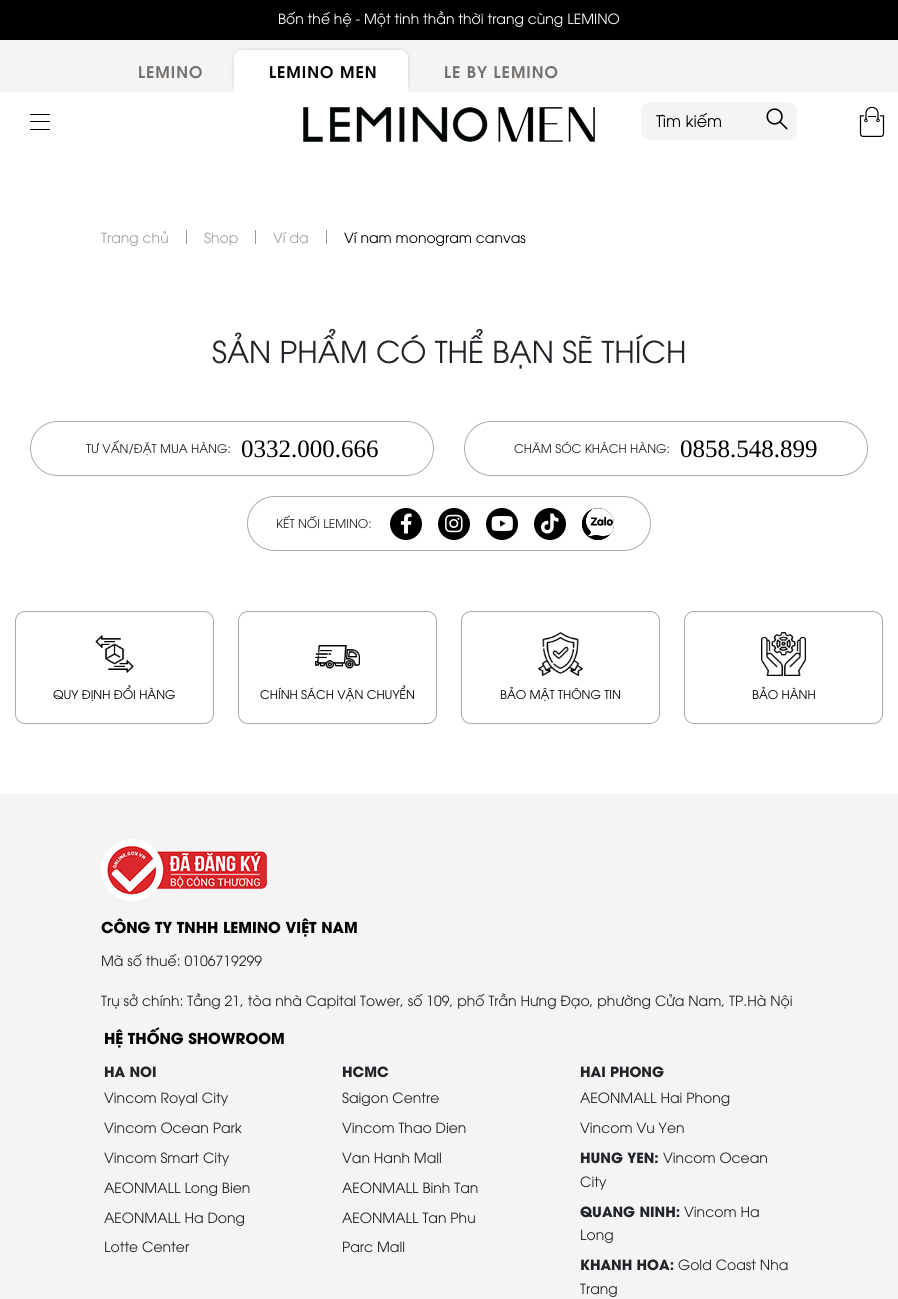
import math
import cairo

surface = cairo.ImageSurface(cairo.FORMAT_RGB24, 898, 1299)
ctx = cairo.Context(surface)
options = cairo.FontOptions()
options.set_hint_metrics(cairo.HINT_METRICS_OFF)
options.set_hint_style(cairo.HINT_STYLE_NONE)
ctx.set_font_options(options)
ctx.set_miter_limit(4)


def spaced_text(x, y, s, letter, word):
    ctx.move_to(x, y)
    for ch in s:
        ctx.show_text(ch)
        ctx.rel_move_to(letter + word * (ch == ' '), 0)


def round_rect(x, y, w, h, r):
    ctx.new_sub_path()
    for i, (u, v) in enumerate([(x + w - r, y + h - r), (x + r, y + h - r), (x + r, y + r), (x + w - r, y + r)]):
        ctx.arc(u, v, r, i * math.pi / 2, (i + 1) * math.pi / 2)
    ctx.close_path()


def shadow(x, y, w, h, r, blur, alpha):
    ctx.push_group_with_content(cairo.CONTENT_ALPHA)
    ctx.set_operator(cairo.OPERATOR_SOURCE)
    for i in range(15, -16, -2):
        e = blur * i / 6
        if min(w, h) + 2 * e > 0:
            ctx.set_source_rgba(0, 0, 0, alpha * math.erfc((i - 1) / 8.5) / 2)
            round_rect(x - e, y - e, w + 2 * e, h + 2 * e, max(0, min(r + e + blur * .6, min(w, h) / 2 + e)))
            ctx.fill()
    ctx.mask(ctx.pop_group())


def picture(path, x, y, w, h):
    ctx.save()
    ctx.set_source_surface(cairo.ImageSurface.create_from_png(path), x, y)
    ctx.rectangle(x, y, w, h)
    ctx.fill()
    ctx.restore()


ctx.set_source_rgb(1, 1, 1)
ctx.paint()
ctx.set_source_rgb(0, 0, 0)
ctx.rectangle(0, 0, 898, 40)
ctx.fill()
ctx.select_font_face("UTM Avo")
ctx.set_font_size(14)
ctx.set_source_rgb(1, 1, 1)
ctx.move_to(278, 24)
ctx.show_text("Bốn thế hệ - Một tinh thần thời trang cùng LEMINO")
ctx.set_source_rgb(0.957, 0.957, 0.957)
ctx.rectangle(0, 40, 898, 52)
ctx.fill()
ctx.select_font_face("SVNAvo", cairo.FONT_SLANT_NORMAL, cairo.FONT_WEIGHT_BOLD)
ctx.set_font_size(16)
ctx.set_source_rgb(0.459, 0.439, 0.424)
spaced_text(138, 78, "LEMINO", 1, 0)
ctx.save()
ctx.rectangle(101, 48, 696, 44)
ctx.clip()
ctx.set_source_rgb(0, 0, 0)
shadow(234, 50, 174, 42, 8, 2, 0.16)
ctx.restore()
ctx.set_source_rgb(1, 1, 1)
ctx.new_path()
ctx.move_to(242, 50)
ctx.line_to(400, 50)
ctx.curve_to(404.5, 50, 408, 53.5, 408, 58)
ctx.line_to(408, 92)
ctx.line_to(234, 92)
ctx.line_to(234, 58)
ctx.curve_to(234, 53.5, 237.5, 50, 242, 50)
ctx.close_path()
ctx.fill()
ctx.set_source_rgb(0, 0, 0)
spaced_text(269, 78, "LEMINO MEN", 1, 0)
ctx.set_source_rgb(0.459, 0.439, 0.424)
spaced_text(444, 78, "LE BY LEMINO", 1, 0)
ctx.set_source_rgb(0, 0, 0)
ctx.rectangle(30, 114, 20, 1)
ctx.fill()
ctx.rectangle(30, 121, 20, 1)
ctx.fill()
ctx.rectangle(30, 129, 20, 1)
ctx.fill()
picture("img1.png", 303, 107, 292, 35)
ctx.set_source_rgb(0.957, 0.957, 0.957)
round_rect(641, 102, 156, 38, 10)
ctx.fill()
ctx.select_font_face("UTM Avo")
ctx.set_source_rgb(0, 0, 0)
ctx.move_to(656, 127)
ctx.show_text("Tìm kiếm")
picture("img2.png", 766, 108, 22, 22)
picture("img3.png", 859, 106, 26, 31)
ctx.set_source_rgb(0.604, 0.604, 0.604)
ctx.rectangle(186, 230, 1, 14)
ctx.fill()
ctx.set_font_size(14)
ctx.set_source_rgb(0.62, 0.631, 0.635)
ctx.move_to(101, 243)
ctx.show_text("Trang chủ")
ctx.set_source_rgb(0.604, 0.604, 0.604)
ctx.rectangle(255, 230, 1, 14)
ctx.fill()
ctx.set_source_rgb(0.62, 0.631, 0.635)
ctx.move_to(204, 243)
ctx.show_text("Shop")
ctx.set_source_rgb(0.604, 0.604, 0.604)
ctx.rectangle(326, 230, 1, 14)
ctx.fill()
ctx.set_source_rgb(0.62, 0.631, 0.635)
ctx.move_to(273, 243)
ctx.show_text("Ví da")
ctx.set_source_rgb(0, 0, 0)
ctx.move_to(344, 243)
ctx.show_text("Ví nam monogram canvas")
ctx.set_font_size(30)
ctx.set_source_rgb(0.129, 0.145, 0.161)
ctx.move_to(212, 363)
ctx.show_text("SẢN PHẨM CÓ THỂ BẠN SẼ THÍCH")
round_rect(30.5, 421.5, 403, 54, 27)
ctx.set_source_rgb(0.675, 0.675, 0.675)
ctx.set_line_width(1)
ctx.stroke()
ctx.set_font_size(12)
ctx.set_source_rgb(0.129, 0.145, 0.161)
ctx.move_to(86, 453)
ctx.show_text("TƯ VẤN/ĐẶT MUA HÀNG:")
ctx.select_font_face("Liberation Serif")
ctx.set_font_size(25)
ctx.set_source_rgb(0, 0, 0)
ctx.move_to(241, 457)
ctx.show_text("0332.000.666")
round_rect(464.5, 421.5, 403, 54, 27)
ctx.set_source_rgb(0.675, 0.675, 0.675)
ctx.stroke()
ctx.select_font_face("UTM Avo")
ctx.set_font_size(12)
ctx.set_source_rgb(0.129, 0.145, 0.161)
ctx.move_to(514, 453)
ctx.show_text("CHĂM SÓC KHÁCH HÀNG:")
ctx.select_font_face("Liberation Serif")
ctx.set_font_size(25)
ctx.set_source_rgb(0, 0, 0)
ctx.move_to(680, 457)
ctx.show_text("0858.548.899")
round_rect(247.5, 496.5, 403, 54, 27)
ctx.set_source_rgb(0.675, 0.675, 0.675)
ctx.stroke()
ctx.select_font_face("UTM Avo")
ctx.set_font_size(12)
ctx.set_source_rgb(0.129, 0.145, 0.161)
ctx.move_to(276, 528)
ctx.show_text("KẾT NỐI LEMINO:")
ctx.set_source_rgb(0, 0, 0)
ctx.new_path()
ctx.arc(406, 524, 16, 0, 2 * math.pi)
ctx.fill()
picture("img4.png", 400, 513, 12, 21)
ctx.arc(454, 524, 16, 0, 2 * math.pi)
ctx.fill()
picture("img5.png", 445, 514, 18, 19)
ctx.arc(502, 524, 16, 0, 2 * math.pi)
ctx.fill()
picture("img6.png", 491, 516, 22, 15)
ctx.arc(550, 524, 16, 0, 2 * math.pi)
ctx.fill()
picture("img7.png", 541, 513, 18, 21)
ctx.arc(598, 524, 16, 0, 2 * math.pi)
ctx.fill()
picture("img8.png", 582, 508, 32, 32)
round_rect(15.5, 611.5, 198, 112, 9.5)
ctx.set_source_rgb(0.675, 0.675, 0.675)
ctx.stroke()
picture("img9.png", 95, 635, 39, 38)
ctx.set_source_rgb(0, 0, 0)
ctx.move_to(53, 699)
ctx.show_text("QUY ĐỊNH ĐỔI HÀNG")
round_rect(238.5, 611.5, 198, 112, 9.5)
ctx.set_source_rgb(0.675, 0.675, 0.675)
ctx.stroke()
picture("img10.png", 315, 645, 45, 24)
ctx.set_source_rgb(0, 0, 0)
ctx.move_to(260, 699)
ctx.show_text("CHÍNH SÁCH VẬN CHUYỂN")
round_rect(461.5, 611.5, 198, 112, 9.5)
ctx.set_source_rgb(0.675, 0.675, 0.675)
ctx.stroke()
picture("img11.png", 538, 632, 45, 44)
ctx.set_source_rgb(0, 0, 0)
ctx.move_to(500, 699)
ctx.show_text("BẢO MẬT THÔNG TIN")
round_rect(684.5, 611.5, 198, 112, 9.5)
ctx.set_source_rgb(0.675, 0.675, 0.675)
ctx.stroke()
picture("img12.png", 761, 632, 45, 44)
ctx.set_source_rgb(0, 0, 0)
ctx.move_to(752, 699)
ctx.show_text("BẢO HÀNH")
ctx.set_source_rgb(0.957, 0.957, 0.957)
ctx.rectangle(0, 794, 898, 505)
ctx.fill()
picture("img13.png", 101, 839, 166, 62)
ctx.select_font_face("UTM Avo", cairo.FONT_SLANT_NORMAL, cairo.FONT_WEIGHT_BOLD)
ctx.set_font_size(15)
ctx.set_source_rgb(0, 0, 0)
ctx.move_to(101, 933)
ctx.show_text("CÔNG TY TNHH LEMINO VIỆT NAM")
ctx.select_font_face("UTM Avo")
ctx.set_font_size(14)
ctx.set_source_rgb(0.129, 0.145, 0.161)
ctx.move_to(101, 966)
ctx.show_text("Mã số thuế: 0106719299")
ctx.move_to(101, 1006)
ctx.show_text("Trụ sở chính: Tầng 21, tòa nhà Capital Tower, số 109, phố Trần Hưng Đạo, phường Cửa Nam, TP.Hà Nội")
ctx.select_font_face("UTM Avo", cairo.FONT_SLANT_NORMAL, cairo.FONT_WEIGHT_BOLD)
ctx.set_font_size(15)
ctx.set_source_rgb(0, 0, 0)
ctx.move_to(104, 1044)
ctx.show_text("HỆ THỐNG SHOWROOM")
ctx.set_font_size(14)
ctx.set_source_rgb(0.129, 0.145, 0.161)
ctx.move_to(104, 1077)
ctx.show_text("HA NOI")
ctx.select_font_face("UTM Avo")
ctx.move_to(104, 1103)
ctx.show_text("Vincom Royal City")
ctx.move_to(104, 1133)
ctx.show_text("Vincom Ocean Park")
ctx.move_to(104, 1163)
ctx.show_text("Vincom Smart City")
ctx.move_to(104, 1193)
ctx.show_text("AEONMALL Long Bien")
ctx.move_to(104, 1223)
ctx.show_text("AEONMALL Ha Dong")
ctx.move_to(104, 1252)
ctx.show_text("Lotte Center")
ctx.select_font_face("UTM Avo", cairo.FONT_SLANT_NORMAL, cairo.FONT_WEIGHT_BOLD)
ctx.move_to(342, 1077)
ctx.show_text("HCMC")
ctx.select_font_face("UTM Avo")
ctx.move_to(342, 1103)
ctx.show_text("Saigon Centre")
ctx.move_to(342, 1133)
ctx.show_text("Vincom Thao Dien")
ctx.move_to(342, 1163)
ctx.show_text("Van Hanh Mall")
ctx.move_to(342, 1193)
ctx.show_text("AEONMALL Binh Tan")
ctx.move_to(342, 1223)
ctx.show_text("AEONMALL Tan Phu")
ctx.move_to(342, 1252)
ctx.show_text("Parc Mall")
ctx.select_font_face("UTM Avo", cairo.FONT_SLANT_NORMAL, cairo.FONT_WEIGHT_BOLD)
ctx.move_to(580, 1077)
ctx.show_text("HAI PHONG")
ctx.select_font_face("UTM Avo")
ctx.move_to(580, 1103)
ctx.show_text("AEONMALL Hai Phong")
ctx.move_to(580, 1133)
ctx.show_text("Vincom Vu Yen")
ctx.select_font_face("UTM Avo", cairo.FONT_SLANT_NORMAL, cairo.FONT_WEIGHT_BOLD)
ctx.move_to(580, 1163)
ctx.show_text("HUNG YEN:")
ctx.select_font_face("UTM Avo")
ctx.move_to(663, 1163)
ctx.show_text("Vincom Ocean")
ctx.move_to(580, 1187)
ctx.show_text("City")
ctx.select_font_face("UTM Avo", cairo.FONT_SLANT_NORMAL, cairo.FONT_WEIGHT_BOLD)
ctx.move_to(580, 1217)
ctx.show_text("QUANG NINH:")
ctx.select_font_face("UTM Avo")
ctx.move_to(684, 1217)
ctx.show_text("Vincom Ha")
ctx.move_to(580, 1240)
ctx.show_text("Long")
ctx.select_font_face("UTM Avo", cairo.FONT_SLANT_NORMAL, cairo.FONT_WEIGHT_BOLD)
ctx.move_to(580, 1270)
ctx.show_text("KHANH HOA:")
ctx.select_font_face("UTM Avo")
ctx.move_to(678, 1270)
ctx.show_text("Gold Coast Nha")
ctx.move_to(580, 1294)
ctx.show_text("Trang")
surface.write_to_png("page.png")
